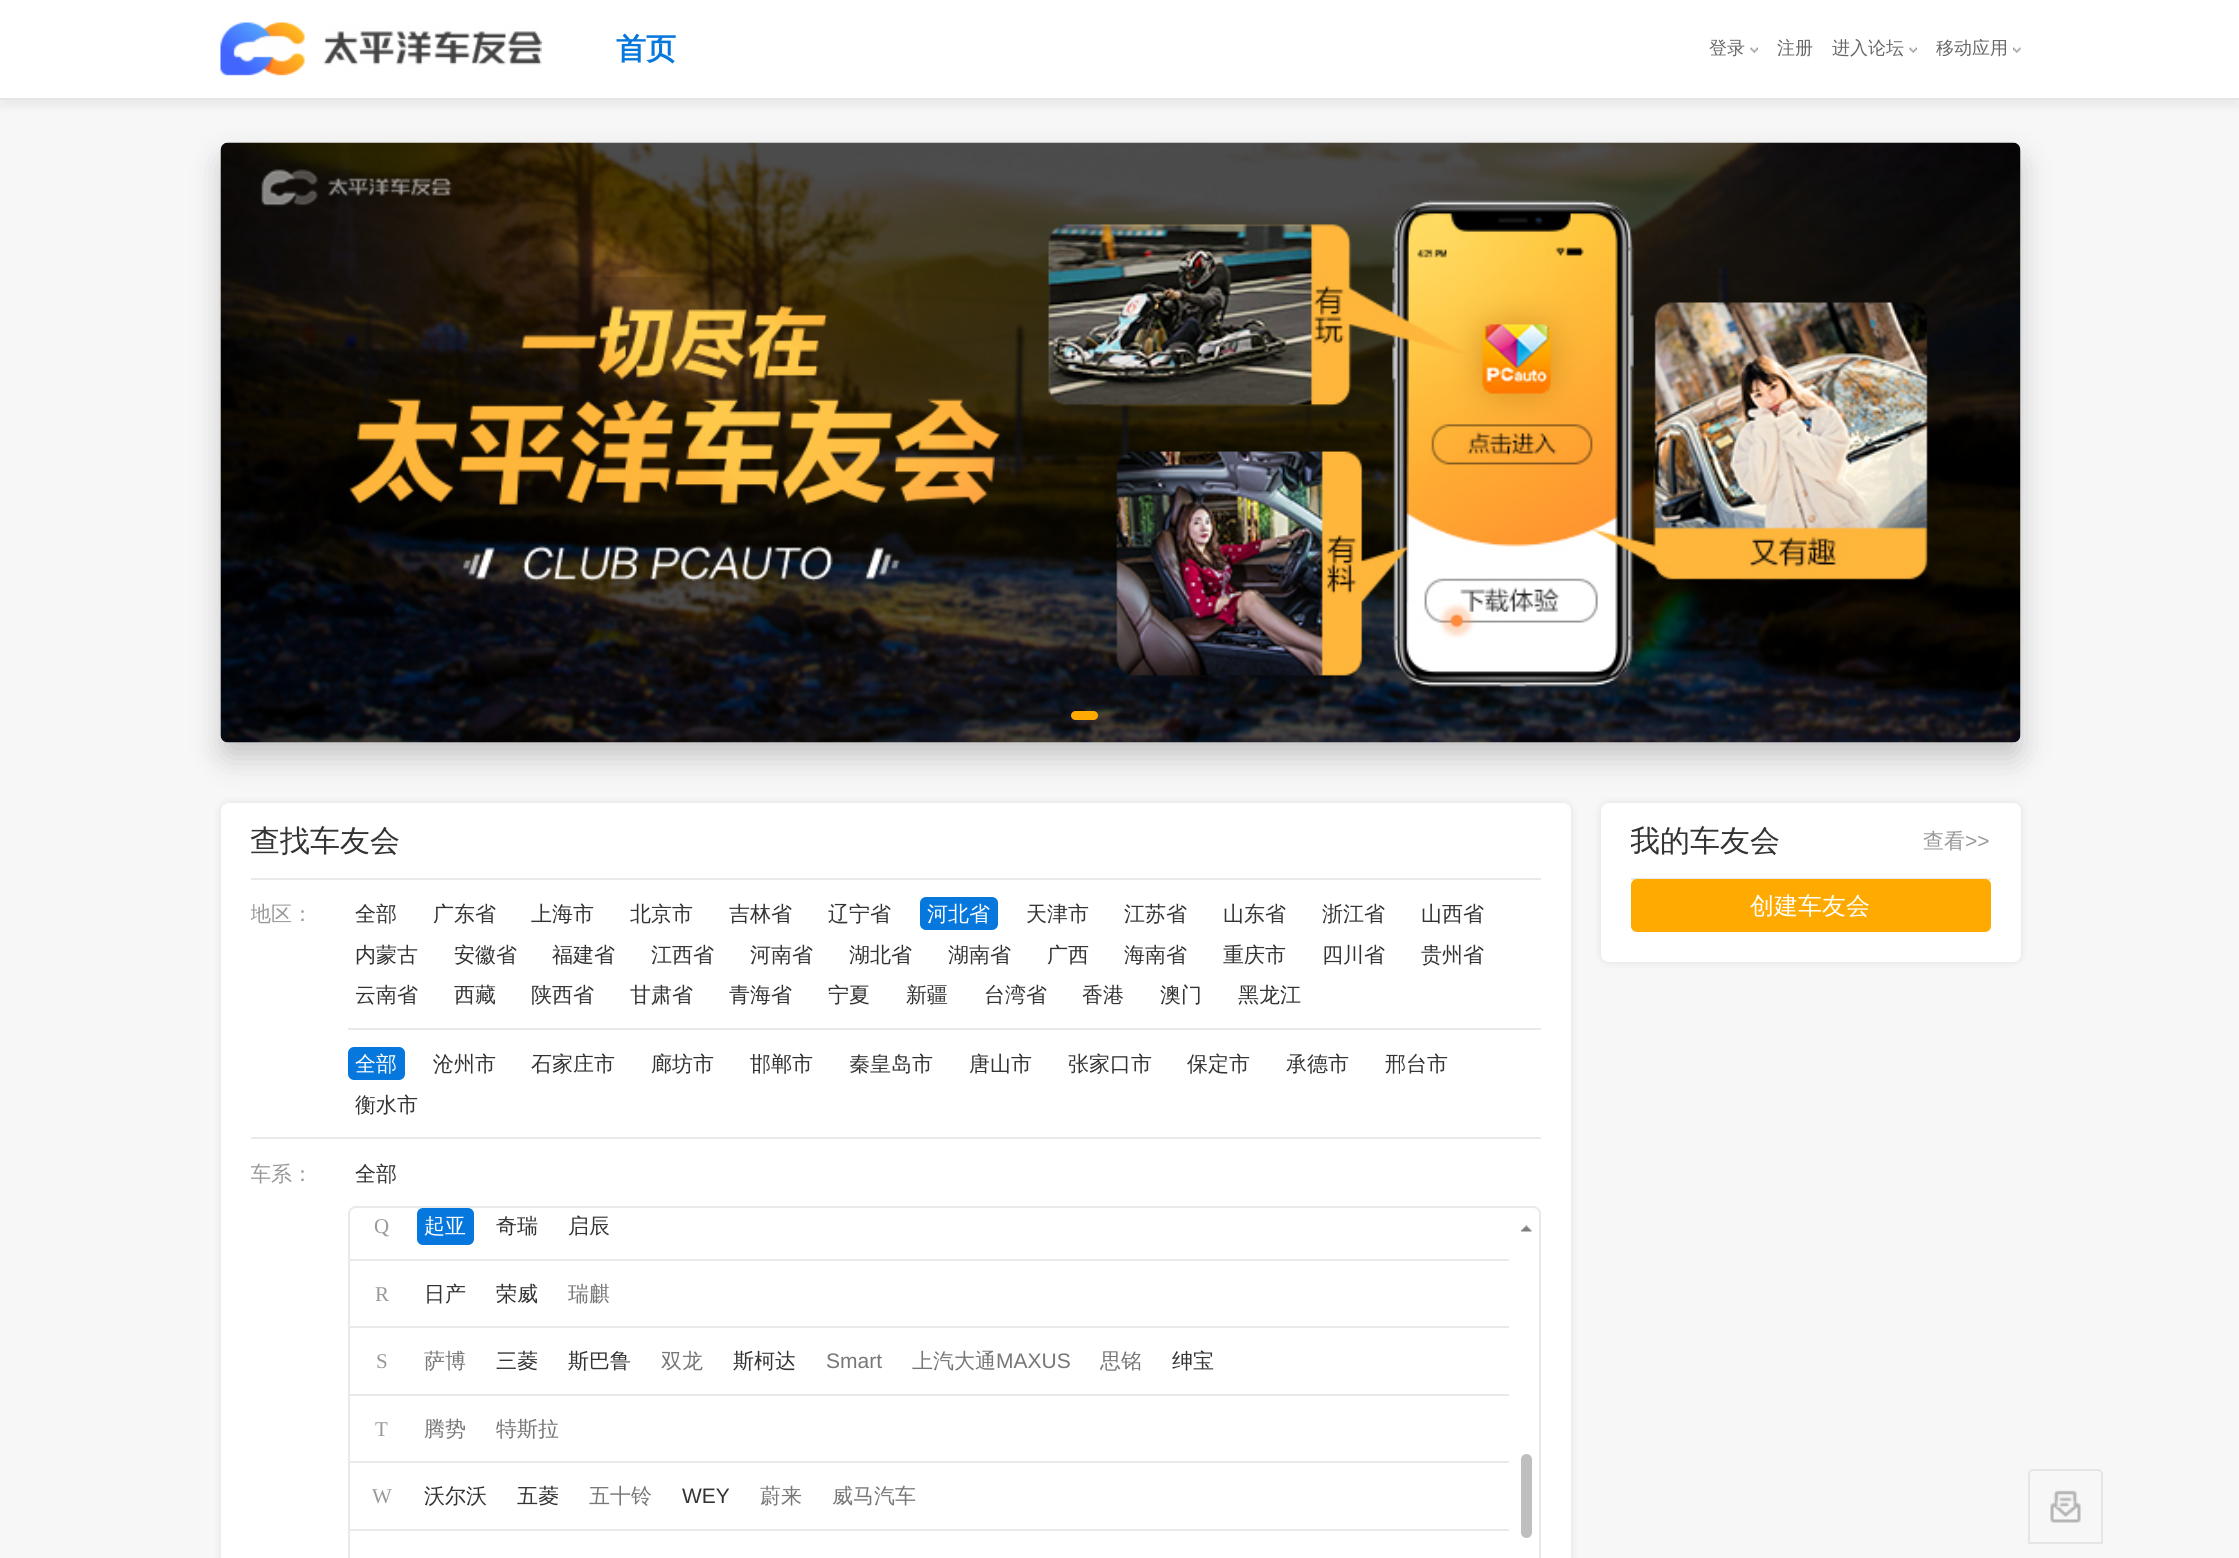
import math
import cairo

surface = cairo.ImageSurface(cairo.FORMAT_RGB24, 2239, 1558)
ctx = cairo.Context(surface)
options = cairo.FontOptions()
options.set_hint_metrics(cairo.HINT_METRICS_OFF)
options.set_hint_style(cairo.HINT_STYLE_NONE)
ctx.set_font_options(options)
ctx.set_miter_limit(4)


def round_rect(x, y, w, h, r):
    ctx.new_sub_path()
    for i, (u, v) in enumerate([(x + w - r, y + h - r), (x + r, y + h - r), (x + r, y + r), (x + w - r, y + r)]):
        ctx.arc(u, v, r, i * math.pi / 2, (i + 1) * math.pi / 2)
    ctx.close_path()


def shadow(x, y, w, h, r, blur, alpha):
    ctx.push_group_with_content(cairo.CONTENT_ALPHA)
    ctx.set_operator(cairo.OPERATOR_SOURCE)
    for i in range(15, -16, -2):
        e = blur * i / 6
        if min(w, h) + 2 * e > 0:
            ctx.set_source_rgba(0, 0, 0, alpha * math.erfc((i - 1) / 8.5) / 2)
            round_rect(x - e, y - e, w + 2 * e, h + 2 * e, max(0, min(r + e + blur * .6, min(w, h) / 2 + e)))
            ctx.fill()
    ctx.mask(ctx.pop_group())


def picture(path, x, y, w, h):
    ctx.save()
    ctx.set_source_surface(cairo.ImageSurface.create_from_png(path), x, y)
    ctx.rectangle(x, y, w, h)
    ctx.fill()
    ctx.restore()


ctx.set_source_rgb(0.965, 0.965, 0.965)
ctx.paint()
ctx.set_source_rgb(0, 0, 0)
shadow(0, 8, 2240, 99, 0, 4, 0.05)
ctx.set_source_rgb(1, 1, 1)
ctx.rectangle(0, 0, 2239, 98)
ctx.fill()
ctx.set_source_rgb(0.898, 0.898, 0.898)
ctx.rectangle(0, 98, 2239, 2)
ctx.fill()
picture("img1.png", 220, 22, 322, 54)
ctx.select_font_face("WenQuanYi Zen Hei", cairo.FONT_SLANT_NORMAL, cairo.FONT_WEIGHT_BOLD)
ctx.set_font_size(30)
ctx.set_source_rgb(0.027, 0.467, 0.867)
ctx.move_to(616, 59)
ctx.show_text("首页")
ctx.select_font_face("WenQuanYi Zen Hei Medium")
ctx.set_font_size(18)
ctx.set_source_rgb(0.4, 0.4, 0.4)
ctx.move_to(1709, 54)
ctx.show_text("登录")
picture("img2.png", 1750, 47, 8, 6)
ctx.move_to(1777, 54)
ctx.show_text("注册")
ctx.move_to(1832, 54)
ctx.show_text("进入论坛")
picture("img2.png", 1909, 47, 8, 6)
ctx.move_to(1936, 54)
ctx.show_text("移动应用")
picture("img3.png", 2013, 47, 8, 6)
ctx.set_source_rgb(0, 0, 0)
shadow(221, 803, 1350, 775, 8, 4, 0.1)
ctx.set_source_rgb(1, 1, 1)
round_rect(221, 803, 1350, 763, 8)
ctx.fill()
ctx.set_source_rgb(0, 0, 0)
shadow(1601, 803, 420, 159, 8, 4, 0.1)
ctx.set_source_rgb(1, 1, 1)
round_rect(1601, 803, 420, 159, 8)
ctx.fill()
ctx.set_source_rgb(0, 0, 0)
shadow(221, 158, 1800, 600, 8, 15, 0.2)
picture("img4.png", 220, 142, 1801, 601)
ctx.set_source_rgb(1, 0.667, 0)
round_rect(1071, 711, 27, 9, 4.5)
ctx.fill()
ctx.set_font_size(30)
ctx.set_source_rgb(0.2, 0.2, 0.2)
ctx.move_to(250, 851)
ctx.show_text("查找车友会")
ctx.set_source_rgb(0.914, 0.914, 0.914)
ctx.rectangle(251, 878, 1290, 2)
ctx.fill()
ctx.save()
ctx.rectangle(251, 879, 1290, 249)
ctx.clip()
ctx.set_font_size(21)
ctx.set_source_rgb(0.6, 0.6, 0.6)
ctx.move_to(250, 921)
ctx.show_text("地区：")
ctx.restore()
ctx.set_font_size(21)
ctx.set_source_rgb(0.2, 0.2, 0.2)
ctx.move_to(355, 921)
ctx.show_text("全部")
ctx.move_to(433, 921)
ctx.show_text("广东省")
ctx.move_to(531, 921)
ctx.show_text("上海市")
ctx.move_to(630, 921)
ctx.show_text("北京市")
ctx.move_to(729, 921)
ctx.show_text("吉林省")
ctx.move_to(828, 921)
ctx.show_text("辽宁省")
ctx.set_source_rgb(0.027, 0.467, 0.867)
round_rect(920, 897, 78, 33, 6)
ctx.fill()
ctx.set_source_rgb(1, 1, 1)
ctx.move_to(927, 921)
ctx.show_text("河北省")
ctx.set_source_rgb(0.2, 0.2, 0.2)
ctx.move_to(1026, 921)
ctx.show_text("天津市")
ctx.move_to(1124, 921)
ctx.show_text("江苏省")
ctx.move_to(1223, 921)
ctx.show_text("山东省")
ctx.move_to(1322, 921)
ctx.show_text("浙江省")
ctx.move_to(1421, 921)
ctx.show_text("山西省")
ctx.move_to(355, 962)
ctx.show_text("内蒙古")
ctx.move_to(454, 962)
ctx.show_text("安徽省")
ctx.move_to(552, 962)
ctx.show_text("福建省")
ctx.move_to(651, 962)
ctx.show_text("江西省")
ctx.move_to(750, 962)
ctx.show_text("河南省")
ctx.move_to(849, 962)
ctx.show_text("湖北省")
ctx.move_to(948, 962)
ctx.show_text("湖南省")
ctx.move_to(1047, 962)
ctx.show_text("广西")
ctx.move_to(1124, 962)
ctx.show_text("海南省")
ctx.move_to(1223, 962)
ctx.show_text("重庆市")
ctx.move_to(1322, 962)
ctx.show_text("四川省")
ctx.move_to(1421, 962)
ctx.show_text("贵州省")
ctx.move_to(355, 1002)
ctx.show_text("云南省")
ctx.move_to(454, 1002)
ctx.show_text("西藏")
ctx.move_to(531, 1002)
ctx.show_text("陕西省")
ctx.move_to(630, 1002)
ctx.show_text("甘肃省")
ctx.move_to(729, 1002)
ctx.show_text("青海省")
ctx.move_to(828, 1002)
ctx.show_text("宁夏")
ctx.move_to(906, 1002)
ctx.show_text("新疆")
ctx.move_to(984, 1002)
ctx.show_text("台湾省")
ctx.move_to(1082, 1002)
ctx.show_text("香港")
ctx.move_to(1160, 1002)
ctx.show_text("澳门")
ctx.move_to(1238, 1002)
ctx.show_text("黑龙江")
ctx.set_source_rgb(0.914, 0.914, 0.914)
ctx.rectangle(348, 1028, 1193, 2)
ctx.fill()
ctx.set_source_rgb(0.027, 0.467, 0.867)
round_rect(348, 1047, 57, 33, 6)
ctx.fill()
ctx.set_source_rgb(1, 1, 1)
ctx.move_to(355, 1071)
ctx.show_text("全部")
ctx.set_source_rgb(0.2, 0.2, 0.2)
ctx.move_to(433, 1071)
ctx.show_text("沧州市")
ctx.move_to(531, 1071)
ctx.show_text("石家庄市")
ctx.move_to(651, 1071)
ctx.show_text("廊坊市")
ctx.move_to(750, 1071)
ctx.show_text("邯郸市")
ctx.move_to(849, 1071)
ctx.show_text("秦皇岛市")
ctx.move_to(969, 1071)
ctx.show_text("唐山市")
ctx.move_to(1068, 1071)
ctx.show_text("张家口市")
ctx.move_to(1187, 1071)
ctx.show_text("保定市")
ctx.move_to(1286, 1071)
ctx.show_text("承德市")
ctx.move_to(1385, 1071)
ctx.show_text("邢台市")
ctx.move_to(355, 1112)
ctx.show_text("衡水市")
ctx.set_source_rgb(0.914, 0.914, 0.914)
ctx.rectangle(251, 1137, 1290, 2)
ctx.fill()
ctx.save()
ctx.rectangle(251, 1139, 1290, 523)
ctx.clip()
ctx.set_source_rgb(0.6, 0.6, 0.6)
ctx.move_to(250, 1181)
ctx.show_text("车系：")
ctx.restore()
ctx.set_source_rgb(0.2, 0.2, 0.2)
ctx.move_to(355, 1181)
ctx.show_text("全部")
round_rect(349, 1207, 1191, 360, 7)
ctx.set_source_rgb(0.914, 0.914, 0.914)
ctx.stroke()
ctx.select_font_face("Liberation Serif")
ctx.set_source_rgb(0.6, 0.6, 0.6)
ctx.move_to(374, 1233)
ctx.show_text("Q")
ctx.set_source_rgb(0.027, 0.467, 0.867)
round_rect(417, 1208, 57, 37, 6)
ctx.fill()
ctx.select_font_face("WenQuanYi Zen Hei Medium")
ctx.set_source_rgb(1, 1, 1)
ctx.move_to(424, 1233)
ctx.show_text("起亚")
ctx.set_source_rgb(0.2, 0.2, 0.2)
ctx.move_to(496, 1233)
ctx.show_text("奇瑞")
ctx.move_to(568, 1233)
ctx.show_text("启辰")
ctx.set_source_rgb(0.914, 0.914, 0.914)
ctx.rectangle(350, 1259, 1159, 2)
ctx.fill()
ctx.select_font_face("Liberation Serif")
ctx.set_source_rgb(0.6, 0.6, 0.6)
ctx.move_to(375, 1301)
ctx.show_text("R")
ctx.select_font_face("WenQuanYi Zen Hei Medium")
ctx.set_source_rgb(0.2, 0.2, 0.2)
ctx.move_to(424, 1301)
ctx.show_text("日产")
ctx.move_to(496, 1301)
ctx.show_text("荣威")
ctx.set_source_rgb(0.467, 0.467, 0.467)
ctx.move_to(568, 1301)
ctx.show_text("瑞麒")
ctx.set_source_rgb(0.914, 0.914, 0.914)
ctx.rectangle(350, 1326, 1159, 2)
ctx.fill()
ctx.select_font_face("Liberation Serif")
ctx.set_source_rgb(0.6, 0.6, 0.6)
ctx.move_to(376, 1368)
ctx.show_text("S")
ctx.select_font_face("WenQuanYi Zen Hei Medium")
ctx.set_source_rgb(0.467, 0.467, 0.467)
ctx.move_to(424, 1368)
ctx.show_text("萨博")
ctx.set_source_rgb(0.2, 0.2, 0.2)
ctx.move_to(496, 1368)
ctx.show_text("三菱")
ctx.move_to(568, 1368)
ctx.show_text("斯巴鲁")
ctx.set_source_rgb(0.467, 0.467, 0.467)
ctx.move_to(661, 1368)
ctx.show_text("双龙")
ctx.set_source_rgb(0.2, 0.2, 0.2)
ctx.move_to(733, 1368)
ctx.show_text("斯柯达")
ctx.select_font_face("Liberation Sans")
ctx.set_source_rgb(0.467, 0.467, 0.467)
ctx.move_to(826, 1368)
ctx.show_text("Smart")
ctx.select_font_face("WenQuanYi Zen Hei Medium")
ctx.move_to(912, 1368)
ctx.show_text("上汽大通")
ctx.select_font_face("Liberation Sans")
ctx.move_to(996, 1368)
ctx.show_text("MAXUS")
ctx.select_font_face("WenQuanYi Zen Hei Medium")
ctx.move_to(1100, 1368)
ctx.show_text("思铭")
ctx.set_source_rgb(0.2, 0.2, 0.2)
ctx.move_to(1172, 1368)
ctx.show_text("绅宝")
ctx.set_source_rgb(0.914, 0.914, 0.914)
ctx.rectangle(350, 1394, 1159, 2)
ctx.fill()
ctx.select_font_face("Liberation Serif")
ctx.set_source_rgb(0.6, 0.6, 0.6)
ctx.move_to(375, 1436)
ctx.show_text("T")
ctx.select_font_face("WenQuanYi Zen Hei Medium")
ctx.set_source_rgb(0.467, 0.467, 0.467)
ctx.move_to(424, 1436)
ctx.show_text("腾势")
ctx.move_to(496, 1436)
ctx.show_text("特斯拉")
ctx.set_source_rgb(0.914, 0.914, 0.914)
ctx.rectangle(350, 1461, 1159, 2)
ctx.fill()
ctx.select_font_face("Liberation Serif")
ctx.set_source_rgb(0.6, 0.6, 0.6)
ctx.move_to(372, 1503)
ctx.show_text("W")
ctx.select_font_face("WenQuanYi Zen Hei Medium")
ctx.set_source_rgb(0.2, 0.2, 0.2)
ctx.move_to(424, 1503)
ctx.show_text("沃尔沃")
ctx.move_to(517, 1503)
ctx.show_text("五菱")
ctx.set_source_rgb(0.467, 0.467, 0.467)
ctx.move_to(589, 1503)
ctx.show_text("五十铃")
ctx.select_font_face("Liberation Sans")
ctx.set_source_rgb(0.2, 0.2, 0.2)
ctx.move_to(682, 1503)
ctx.show_text("WEY")
ctx.select_font_face("WenQuanYi Zen Hei Medium")
ctx.set_source_rgb(0.467, 0.467, 0.467)
ctx.move_to(760, 1503)
ctx.show_text("蔚来")
ctx.move_to(832, 1503)
ctx.show_text("威马汽车")
ctx.set_source_rgb(0.914, 0.914, 0.914)
ctx.rectangle(350, 1529, 1159, 2)
ctx.fill()
picture("img5.png", 1521, 1225, 11, 7)
ctx.set_source_rgb(0.749, 0.749, 0.749)
round_rect(1521, 1454, 11, 84, 5.5)
ctx.fill()
ctx.set_source_rgb(0.914, 0.914, 0.914)
ctx.rectangle(1631, 878, 360, 2)
ctx.fill()
ctx.save()
ctx.rectangle(1631, 803, 360, 75)
ctx.clip()
ctx.set_font_size(30)
ctx.set_source_rgb(0.2, 0.2, 0.2)
ctx.move_to(1630, 851)
ctx.show_text("我的车友会")
ctx.restore()
ctx.set_source_rgb(0.6, 0.6, 0.6)
ctx.move_to(1923, 848)
ctx.show_text("查看")
ctx.select_font_face("Liberation Sans")
ctx.move_to(1965, 848)
ctx.show_text(">>")
ctx.set_source_rgb(1, 0.667, 0)
round_rect(1631, 879, 360, 53, 6)
ctx.fill()
ctx.select_font_face("WenQuanYi Zen Hei Medium")
ctx.set_font_size(24)
ctx.set_source_rgb(1, 1, 1)
ctx.move_to(1750, 914)
ctx.show_text("创建车友会")
ctx.new_path()
ctx.move_to(2033, 1470)
ctx.line_to(2098, 1470)
ctx.curve_to(2100, 1470, 2102, 1472, 2102, 1474)
ctx.line_to(2102, 1543)
ctx.line_to(2029, 1543)
ctx.line_to(2029, 1474)
ctx.curve_to(2029, 1472, 2031, 1470, 2033, 1470)
ctx.close_path()
ctx.set_source_rgb(0.898, 0.898, 0.898)
ctx.stroke()
picture("img6.png", 2050, 1490, 31, 33)
surface.write_to_png("page.png")
